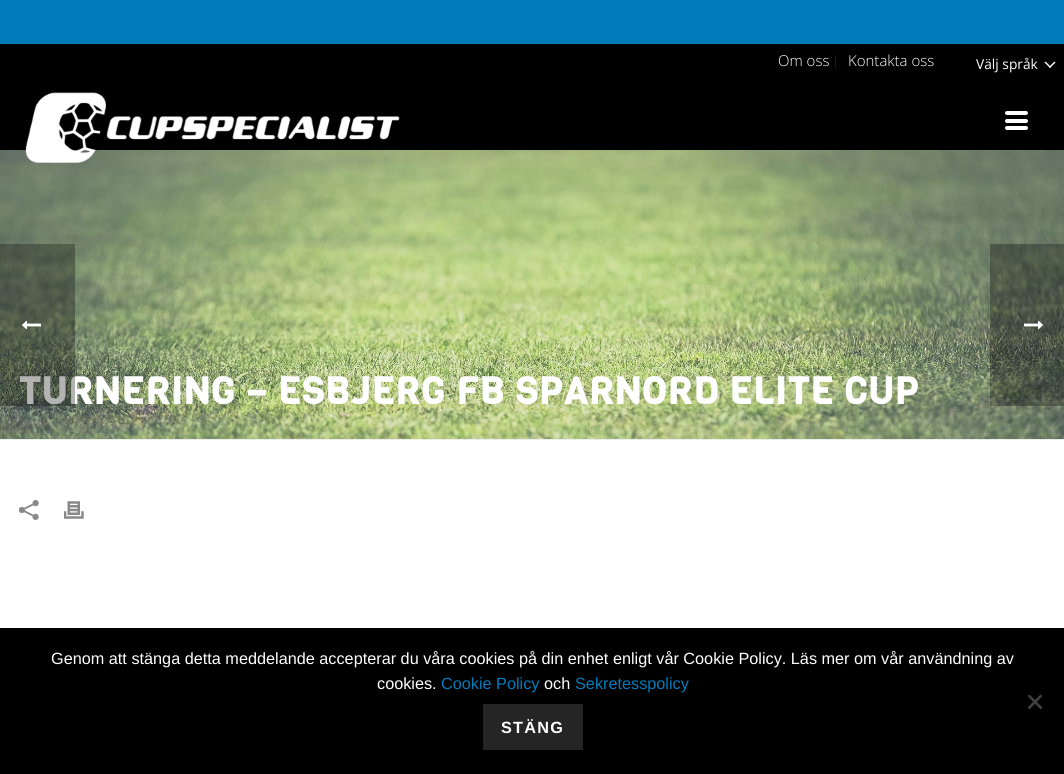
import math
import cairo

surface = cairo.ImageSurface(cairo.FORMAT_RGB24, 1064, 774)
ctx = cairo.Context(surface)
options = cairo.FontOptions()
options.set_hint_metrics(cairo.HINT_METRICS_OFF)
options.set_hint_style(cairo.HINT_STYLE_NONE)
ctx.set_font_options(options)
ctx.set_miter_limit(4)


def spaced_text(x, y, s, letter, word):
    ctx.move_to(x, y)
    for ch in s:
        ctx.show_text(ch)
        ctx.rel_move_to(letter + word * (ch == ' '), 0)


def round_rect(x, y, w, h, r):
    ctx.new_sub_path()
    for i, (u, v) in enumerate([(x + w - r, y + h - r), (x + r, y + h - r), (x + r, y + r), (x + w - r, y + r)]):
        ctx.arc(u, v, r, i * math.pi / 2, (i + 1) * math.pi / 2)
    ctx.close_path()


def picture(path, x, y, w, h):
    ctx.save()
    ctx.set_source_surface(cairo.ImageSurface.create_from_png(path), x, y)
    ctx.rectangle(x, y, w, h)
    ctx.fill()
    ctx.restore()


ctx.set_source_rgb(1, 1, 1)
ctx.paint()
picture("img1.png", 0, 150, 1064, 289)
ctx.set_source_rgb(0.929, 0.929, 0.929)
ctx.rectangle(0, 439, 1064, 1)
ctx.fill()
ctx.set_source_rgb(0, 0, 0)
ctx.rectangle(0, 44, 1064, 106)
ctx.fill()
picture("img2.png", 25, 92, 375, 71)
ctx.set_source_rgb(1, 1, 1)
round_rect(1005, 111, 23, 4, 2)
ctx.fill()
round_rect(1005, 119, 23, 4, 2)
ctx.fill()
round_rect(1005, 126, 23, 4, 2)
ctx.fill()
ctx.set_source_rgb(0, 0.486, 0.729)
ctx.rectangle(0, 0, 1064, 44)
ctx.fill()
ctx.set_source_rgb(0.102, 0.102, 0.102)
ctx.rectangle(835, 55, 1, 13)
ctx.fill()
ctx.select_font_face("Open Sans Light")
ctx.set_font_size(15)
ctx.set_source_rgb(1, 1, 1)
ctx.move_to(778, 66)
ctx.show_text("Om oss")
ctx.move_to(848, 66)
ctx.show_text("Kontakta oss")
ctx.select_font_face("Open Sans")
ctx.set_font_size(13.75)
ctx.move_to(976, 69)
ctx.show_text("Välj språk")
ctx.new_path()
ctx.move_to(1054.5, 61.5)
ctx.line_to(1055.5, 62.5)
ctx.line_to(1050, 68)
ctx.line_to(1049, 67)
ctx.close_path()
ctx.fill()
ctx.new_path()
ctx.move_to(1045.5, 61.5)
ctx.line_to(1051, 67)
ctx.line_to(1050, 68)
ctx.line_to(1044.5, 62.5)
ctx.close_path()
ctx.fill()
ctx.select_font_face("Viga", cairo.FONT_SLANT_NORMAL, cairo.FONT_WEIGHT_BOLD)
ctx.set_font_size(37.5)
spaced_text(19, 404, "TURNERING – ESBJERG FB SPARNORD ELITE CUP", 1.25, 0)
picture("img3.png", 19, 500, 20, 20)
picture("img4.png", 64, 501, 20, 18)
ctx.set_source_rgba(0, 0, 0, 0.3)
ctx.rectangle(0, 244, 75, 162)
ctx.fill()
picture("img5.png", 22, 320, 19, 10)
ctx.rectangle(990, 244, 74, 162)
ctx.fill()
picture("img6.png", 1024, 320, 19, 10)
ctx.set_source_rgb(0, 0, 0)
ctx.rectangle(0, 628, 1064, 146)
ctx.fill()
ctx.select_font_face("Liberation Sans")
ctx.set_font_size(16.25)
ctx.set_source_rgb(1, 1, 1)
ctx.move_to(51, 664)
ctx.show_text("Genom att stänga detta meddelande accepterar du våra cookies på din enhet enligt vår Cookie Policy. Läs mer om vår användning av")
ctx.move_to(377, 689)
ctx.show_text("cookies.")
ctx.set_source_rgb(0, 0.486, 0.729)
ctx.move_to(441, 689)
ctx.show_text("Cookie Policy")
ctx.set_source_rgb(1, 1, 1)
ctx.move_to(544, 689)
ctx.show_text("och")
ctx.set_source_rgb(0, 0.486, 0.729)
ctx.move_to(575, 689)
ctx.show_text("Sekretesspolicy")
ctx.set_source_rgb(0.251, 0.251, 0.251)
ctx.new_path()
ctx.move_to(1040.5, 694.5)
ctx.line_to(1042.5, 696)
ctx.line_to(1029.5, 709.5)
ctx.line_to(1027.5, 707.5)
ctx.close_path()
ctx.fill()
ctx.new_path()
ctx.move_to(1027.5, 696)
ctx.line_to(1029.5, 694.5)
ctx.line_to(1042.5, 707.5)
ctx.line_to(1040.5, 709.5)
ctx.close_path()
ctx.fill()
ctx.set_source_rgb(0.145, 0.145, 0.145)
ctx.rectangle(483, 704, 100, 46)
ctx.fill()
ctx.select_font_face("Liberation Sans", cairo.FONT_SLANT_NORMAL, cairo.FONT_WEIGHT_BOLD)
ctx.set_source_rgb(1, 1, 1)
spaced_text(501, 733, "STÄNG", 1.25, 0)
surface.write_to_png("page.png")
